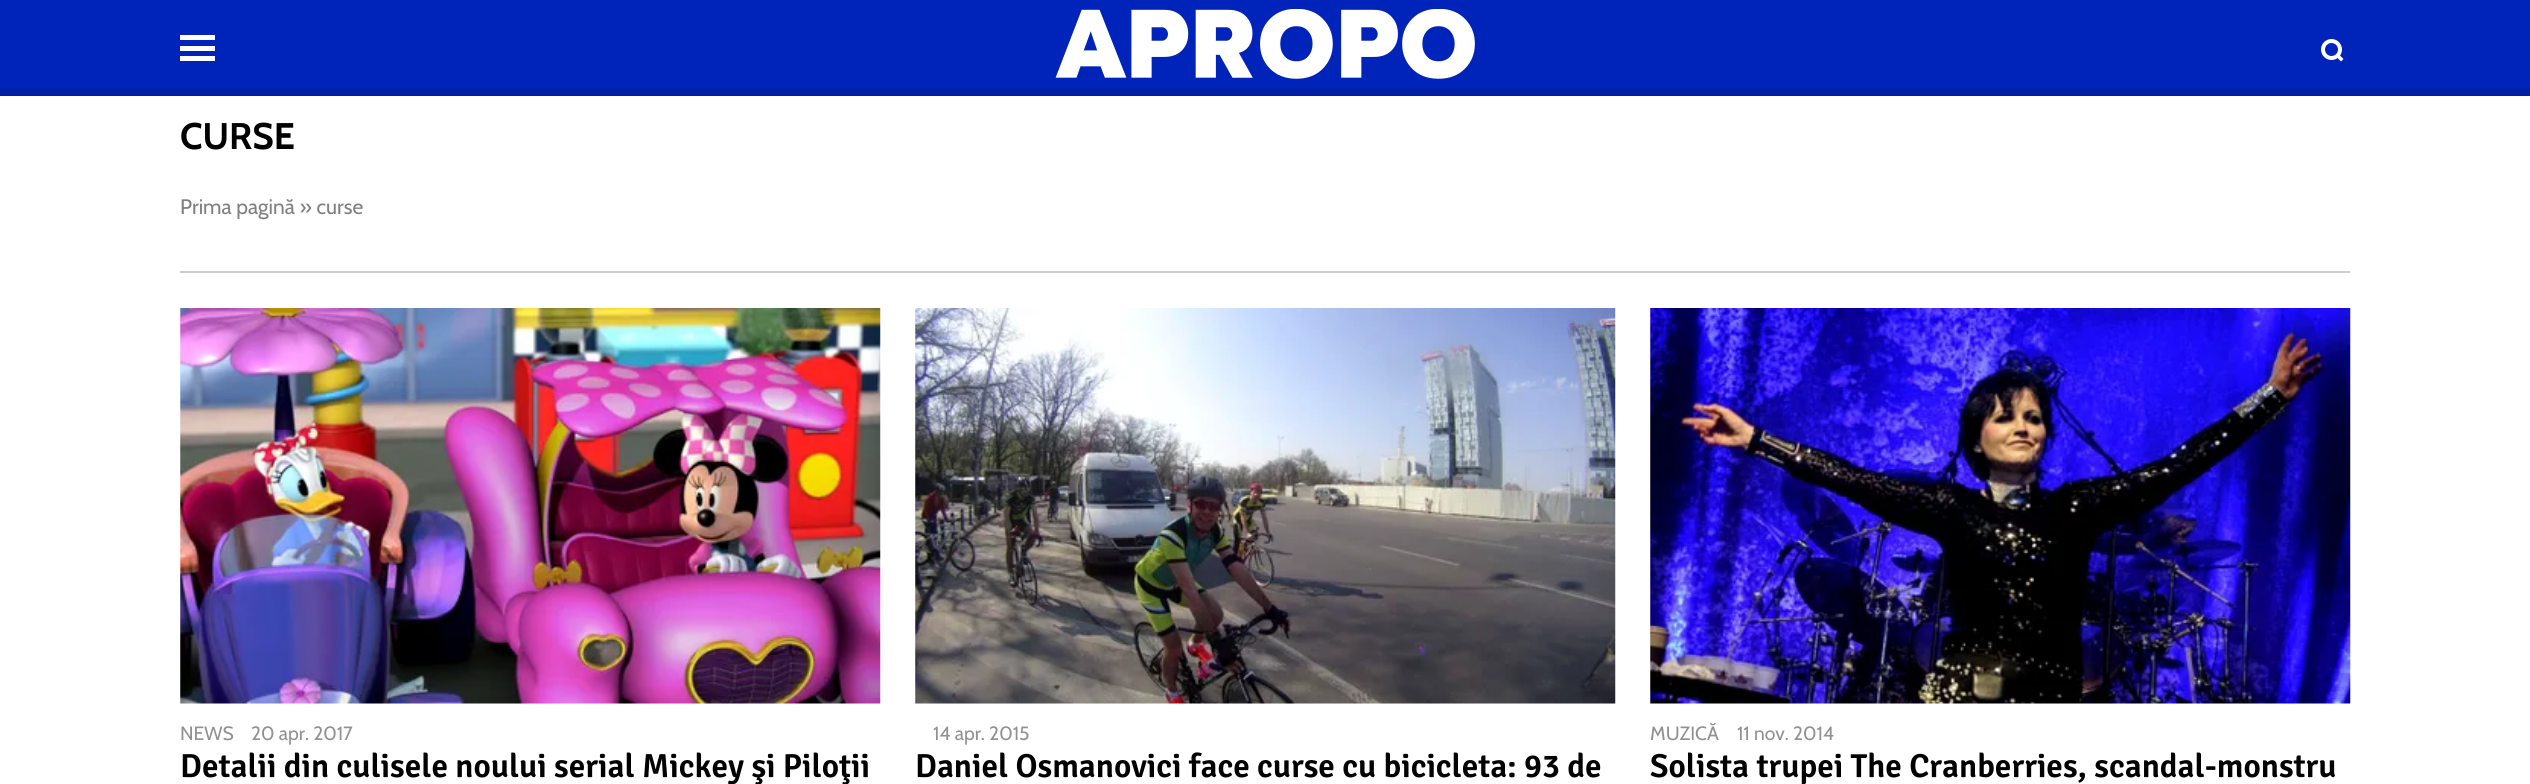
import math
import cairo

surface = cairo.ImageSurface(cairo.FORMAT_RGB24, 2530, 784)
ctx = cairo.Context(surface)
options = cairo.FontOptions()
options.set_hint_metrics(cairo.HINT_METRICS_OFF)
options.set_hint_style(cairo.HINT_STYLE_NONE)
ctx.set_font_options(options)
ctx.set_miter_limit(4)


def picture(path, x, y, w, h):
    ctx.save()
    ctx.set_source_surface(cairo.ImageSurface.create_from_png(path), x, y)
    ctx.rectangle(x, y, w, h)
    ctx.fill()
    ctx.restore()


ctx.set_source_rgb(1, 1, 1)
ctx.paint()
ctx.set_source_rgb(0, 0.141, 0.729)
ctx.rectangle(0, 0, 2530, 88)
ctx.fill()
ctx.set_source_rgb(1, 1, 1)
ctx.rectangle(180, 46, 35, 5)
ctx.fill()
ctx.rectangle(180, 35, 35, 5)
ctx.fill()
ctx.rectangle(180, 56, 35, 5)
ctx.fill()
picture("img1.png", 1055, 9, 420, 70)
ctx.arc(2331.5, 49.5, 8.5, 0, 2 * math.pi)
ctx.set_line_width(4)
ctx.stroke()
ctx.new_path()
ctx.move_to(2336, 56.5)
ctx.line_to(2338.5, 54)
ctx.line_to(2343.5, 59)
ctx.line_to(2341, 61.5)
ctx.close_path()
ctx.fill()
ctx.set_source_rgb(0, 0.125, 0.655)
ctx.rectangle(0, 88, 2530, 8)
ctx.fill()
ctx.set_source_rgb(0.8, 0.8, 0.8)
ctx.rectangle(180, 271, 2170, 2)
ctx.fill()
ctx.select_font_face("Cabin", cairo.FONT_SLANT_NORMAL, cairo.FONT_WEIGHT_BOLD)
ctx.set_font_size(37)
ctx.set_source_rgb(0, 0, 0)
ctx.move_to(180, 149)
ctx.show_text("CURSE")
ctx.select_font_face("Cabin")
ctx.set_font_size(21)
ctx.set_source_rgb(0.502, 0.502, 0.502)
ctx.move_to(180, 214)
ctx.show_text("Prima pagină » curse")
picture("img2.png", 180, 308, 701, 396)
ctx.set_font_size(19.25)
ctx.set_source_rgb(0.569, 0.569, 0.569)
ctx.move_to(180, 740)
ctx.show_text("NEWS")
ctx.move_to(251, 740)
ctx.show_text("20 apr. 2017")
ctx.select_font_face("Signika SemiBold")
ctx.set_font_size(33.25)
ctx.set_source_rgb(0, 0, 0)
ctx.move_to(180, 777)
ctx.show_text("Detalii din culisele noului serial Mickey şi Piloţii")
picture("img3.png", 915, 308, 701, 396)
ctx.select_font_face("Cabin")
ctx.set_font_size(19.25)
ctx.set_source_rgb(0.569, 0.569, 0.569)
ctx.move_to(933, 740)
ctx.show_text("14 apr. 2015")
ctx.select_font_face("Signika SemiBold")
ctx.set_font_size(33.25)
ctx.set_source_rgb(0, 0, 0)
ctx.move_to(915, 777)
ctx.show_text("Daniel Osmanovici face curse cu bicicleta: 93 de")
picture("img4.png", 1650, 308, 701, 396)
ctx.select_font_face("Cabin")
ctx.set_font_size(19.25)
ctx.set_source_rgb(0.569, 0.569, 0.569)
ctx.move_to(1650, 740)
ctx.show_text("MUZICĂ")
ctx.move_to(1737, 740)
ctx.show_text("11 nov. 2014")
ctx.select_font_face("Signika SemiBold")
ctx.set_font_size(33.25)
ctx.set_source_rgb(0, 0, 0)
ctx.move_to(1650, 777)
ctx.show_text("Solista trupei The Cranberries, scandal-monstru")
surface.write_to_png("page.png")
